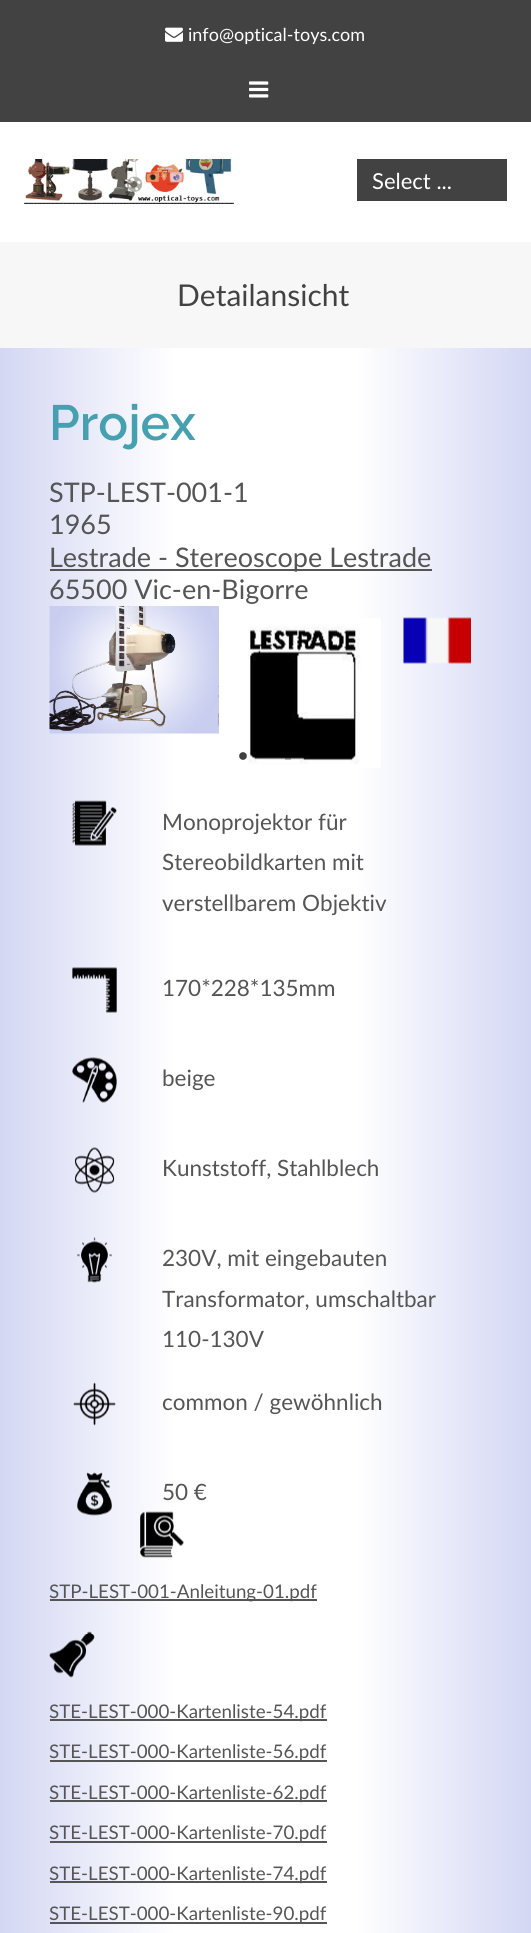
import math
import cairo

surface = cairo.ImageSurface(cairo.FORMAT_RGB24, 531, 1933)
ctx = cairo.Context(surface)
options = cairo.FontOptions()
options.set_hint_metrics(cairo.HINT_METRICS_OFF)
options.set_hint_style(cairo.HINT_STYLE_NONE)
ctx.set_font_options(options)
ctx.set_miter_limit(4)


def picture(path, x, y, w, h):
    ctx.save()
    ctx.set_source_surface(cairo.ImageSurface.create_from_png(path), x, y)
    ctx.rectangle(x, y, w, h)
    ctx.fill()
    ctx.restore()


ctx.set_source_rgb(1, 1, 1)
ctx.paint()
gradient = cairo.LinearGradient(0, 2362, 531, 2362)
gradient.add_color_stop_rgba(0, 0.827, 0.843, 0.953, 1)
gradient.add_color_stop_rgba(0.33, 1, 1, 1, 1)
gradient.add_color_stop_rgba(0.67, 1, 1, 1, 1)
gradient.add_color_stop_rgba(1, 0.827, 0.843, 0.953, 1)
ctx.set_source(gradient)
ctx.rectangle(0, 348, 531, 1585)
ctx.fill()
ctx.set_source_rgb(0.259, 0.259, 0.259)
ctx.rectangle(0, 0, 531, 122)
ctx.fill()
picture("img1.png", 165, 27, 18, 15)
ctx.select_font_face("Lato")
ctx.set_font_size(18)
ctx.set_source_rgb(1, 1, 1)
ctx.move_to(188, 41)
ctx.show_text("info@optical-toys.com")
picture("img2.png", 249, 81, 20, 17)
picture("img3.png", 24, 159, 210, 45)
ctx.set_source_rgb(0.259, 0.259, 0.259)
ctx.rectangle(357, 159, 150, 42)
ctx.fill()
ctx.set_font_size(22)
ctx.set_source_rgb(1, 1, 1)
ctx.move_to(372, 189)
ctx.show_text("Select ...")
ctx.set_source_rgb(0.965, 0.965, 0.965)
ctx.rectangle(0, 242, 531, 106)
ctx.fill()
ctx.set_font_size(30)
ctx.set_source_rgb(0.259, 0.259, 0.259)
ctx.move_to(177, 306)
ctx.show_text("Detailansicht")
ctx.select_font_face("Raleway SemiBold")
ctx.set_font_size(49.5)
ctx.set_source_rgb(0.278, 0.627, 0.686)
ctx.move_to(49, 440)
ctx.show_text("Projex")
ctx.select_font_face("Lato")
ctx.set_font_size(27)
ctx.set_source_rgb(0.333, 0.333, 0.333)
ctx.move_to(49, 502)
ctx.show_text("STP-LEST-001-1")
ctx.move_to(49, 534)
ctx.show_text("1965")
ctx.rectangle(50, 569, 382, 2)
ctx.fill()
ctx.move_to(49, 567)
ctx.show_text("Lestrade - Stereoscope Lestrade")
ctx.move_to(49, 599)
ctx.show_text("65500 Vic-en-Bigorre")
picture("img4.png", 49, 606, 170, 128)
picture("img5.png", 218, 686, 1, 40)
picture("img6.png", 239, 752, 8, 8)
picture("img7.png", 248, 618, 133, 150)
ctx.set_source_rgba(0, 0, 0, 0.25)
ctx.rectangle(285, 757, 6, 3)
ctx.fill()
picture("img8.png", 403, 617, 68, 47)
picture("img9.png", 72, 800, 45, 46)
ctx.set_font_size(22.5)
ctx.set_source_rgb(0.333, 0.333, 0.333)
ctx.move_to(162, 830)
ctx.show_text("Monoprojektor für")
ctx.move_to(162, 870)
ctx.show_text("Stereobildkarten mit")
ctx.move_to(162, 911)
ctx.show_text("verstellbarem Objektiv")
picture("img10.png", 72, 967, 45, 46)
ctx.move_to(162, 996)
ctx.show_text("170*228*135mm")
picture("img11.png", 72, 1057, 45, 46)
ctx.move_to(162, 1086)
ctx.show_text("beige")
picture("img12.png", 75, 1147, 40, 46)
ctx.move_to(162, 1176)
ctx.show_text("Kunststoff, Stahlblech")
picture("img13.png", 77, 1237, 35, 46)
ctx.move_to(162, 1266)
ctx.show_text("230V, mit eingebauten")
ctx.move_to(162, 1307)
ctx.show_text("Transformator, umschaltbar")
ctx.move_to(162, 1347)
ctx.show_text("110-130V")
picture("img14.png", 73, 1382, 43, 44)
ctx.move_to(162, 1410)
ctx.show_text("common / gewöhnlich")
picture("img15.png", 77, 1472, 35, 44)
ctx.move_to(162, 1500)
ctx.show_text("50 €")
picture("img16.png", 140, 1511, 44, 47)
ctx.rectangle(50, 1599, 267, 2)
ctx.fill()
ctx.set_font_size(18.75)
ctx.move_to(49, 1598)
ctx.show_text("STP-LEST-001-Anleitung-01.pdf")
picture("img17.png", 49, 1631, 46, 47)
ctx.rectangle(50, 1719, 277, 2)
ctx.fill()
ctx.move_to(49, 1718)
ctx.show_text("STE-LEST-000-Kartenliste-54.pdf")
ctx.rectangle(50, 1760, 277, 2)
ctx.fill()
ctx.move_to(49, 1758)
ctx.show_text("STE-LEST-000-Kartenliste-56.pdf")
ctx.rectangle(50, 1800, 277, 2)
ctx.fill()
ctx.move_to(49, 1799)
ctx.show_text("STE-LEST-000-Kartenliste-62.pdf")
ctx.rectangle(50, 1841, 277, 2)
ctx.fill()
ctx.move_to(49, 1839)
ctx.show_text("STE-LEST-000-Kartenliste-70.pdf")
ctx.rectangle(50, 1881, 277, 2)
ctx.fill()
ctx.move_to(49, 1880)
ctx.show_text("STE-LEST-000-Kartenliste-74.pdf")
ctx.rectangle(50, 1922, 277, 2)
ctx.fill()
ctx.move_to(49, 1920)
ctx.show_text("STE-LEST-000-Kartenliste-90.pdf")
surface.write_to_png("page.png")
